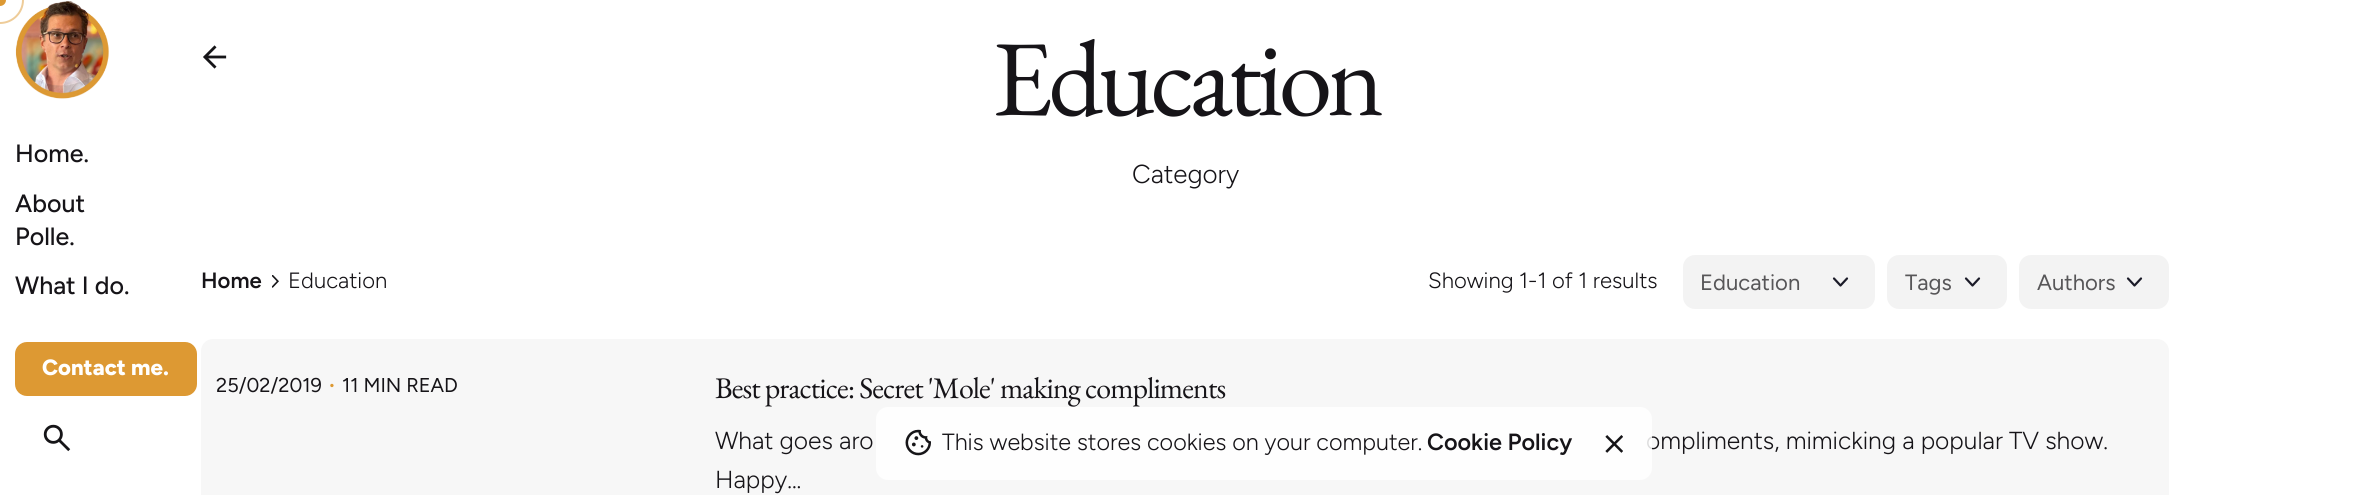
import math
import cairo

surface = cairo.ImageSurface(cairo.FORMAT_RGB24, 2370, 495)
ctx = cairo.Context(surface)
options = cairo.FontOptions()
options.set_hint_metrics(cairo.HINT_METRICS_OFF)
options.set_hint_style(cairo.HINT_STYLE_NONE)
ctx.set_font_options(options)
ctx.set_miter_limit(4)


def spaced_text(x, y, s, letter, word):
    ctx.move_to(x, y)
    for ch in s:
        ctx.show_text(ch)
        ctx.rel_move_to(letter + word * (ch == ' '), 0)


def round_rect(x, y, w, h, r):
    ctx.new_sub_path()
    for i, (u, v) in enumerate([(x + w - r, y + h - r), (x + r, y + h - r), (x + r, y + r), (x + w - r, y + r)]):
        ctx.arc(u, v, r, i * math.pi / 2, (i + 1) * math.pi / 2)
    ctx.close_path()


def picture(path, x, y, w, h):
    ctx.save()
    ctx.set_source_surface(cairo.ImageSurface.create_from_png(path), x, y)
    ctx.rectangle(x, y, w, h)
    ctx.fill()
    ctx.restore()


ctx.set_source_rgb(1, 1, 1)
ctx.paint()
picture("img1.png", 15, 1, 94, 98)
ctx.arc(0, 0, 23, 0, 2 * math.pi)
ctx.set_source_rgb(0.933, 0.8, 0.6)
ctx.stroke()
ctx.set_source_rgb(0.867, 0.6, 0.2)
ctx.arc(0, 0, 6, 0, 2 * math.pi)
ctx.fill()
ctx.select_font_face("Figtree Medium")
ctx.set_font_size(25)
ctx.set_source_rgb(0.086, 0.082, 0.094)
ctx.move_to(15, 162)
ctx.show_text("Home.")
ctx.move_to(15, 212)
ctx.show_text("About")
ctx.move_to(15, 245)
ctx.show_text("Polle.")
ctx.move_to(15, 294)
ctx.show_text("What I do.")
ctx.set_source_rgb(0.867, 0.6, 0.2)
round_rect(15, 342, 182, 54, 12)
ctx.fill()
ctx.select_font_face("Figtree ExtraBold")
ctx.set_font_size(22.1)
ctx.set_source_rgb(1, 1, 1)
ctx.move_to(42, 375)
ctx.show_text("Contact me.")
picture("img2.png", 43, 424, 28, 28)
picture("img3.png", 203, 45, 24, 24)
ctx.select_font_face("EB Garamond")
ctx.set_font_size(108)
ctx.set_source_rgb(0.086, 0.082, 0.094)
spaced_text(992, 115, "Education", -4.75, 0)
ctx.select_font_face("Figtree Light")
ctx.set_font_size(26)
ctx.move_to(1132, 183)
ctx.show_text("Category")
ctx.select_font_face("Figtree SemiBold")
ctx.set_font_size(22.1)
ctx.move_to(201, 288)
ctx.show_text("Home")
picture("img4.png", 272, 275, 7, 13)
ctx.select_font_face("Figtree Light")
ctx.move_to(288, 288)
ctx.show_text("Education")
ctx.move_to(1428, 288)
ctx.show_text("Showing 1-1 of 1 results")
ctx.set_source_rgb(0.953, 0.953, 0.953)
round_rect(1683, 255, 192, 54, 12)
ctx.fill()
ctx.new_path()
ctx.move_to(1834, 278.5)
ctx.line_to(1840.5, 285.5)
ctx.line_to(1847, 278.5)
ctx.set_source_rgb(0.106, 0.106, 0.157)
ctx.set_line_width(2.2)
ctx.set_line_cap(cairo.LINE_CAP_ROUND)
ctx.set_line_join(cairo.LINE_JOIN_ROUND)
ctx.stroke()
ctx.select_font_face("Figtree")
ctx.set_source_rgb(0.341, 0.337, 0.345)
ctx.move_to(1700, 290)
ctx.show_text("Education")
ctx.set_source_rgb(0.953, 0.953, 0.953)
round_rect(1887, 255, 120, 54, 12)
ctx.fill()
ctx.new_path()
ctx.move_to(1966, 278.5)
ctx.line_to(1972.5, 285.5)
ctx.line_to(1979, 278.5)
ctx.set_source_rgb(0.106, 0.106, 0.157)
ctx.stroke()
ctx.set_source_rgb(0.341, 0.337, 0.345)
ctx.move_to(1905, 290)
ctx.show_text("Tags")
ctx.set_source_rgb(0.953, 0.953, 0.953)
round_rect(2019, 255, 150, 54, 12)
ctx.fill()
ctx.new_path()
ctx.move_to(2128, 278.5)
ctx.line_to(2134.5, 285.5)
ctx.line_to(2141, 278.5)
ctx.set_source_rgb(0.106, 0.106, 0.157)
ctx.stroke()
ctx.set_source_rgb(0.341, 0.337, 0.345)
ctx.move_to(2037, 290)
ctx.show_text("Authors")
ctx.set_source_rgb(0.965, 0.965, 0.965)
round_rect(201, 339, 1968, 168, 12)
ctx.fill()
ctx.set_font_size(20)
ctx.set_source_rgb(0.086, 0.082, 0.094)
ctx.move_to(216, 392)
ctx.show_text("25/02/2019")
ctx.set_font_size(16)
ctx.set_source_rgb(0.867, 0.6, 0.2)
ctx.move_to(328, 390)
ctx.show_text("•")
ctx.set_font_size(20)
ctx.set_source_rgb(0.086, 0.082, 0.094)
ctx.move_to(342, 392)
ctx.show_text("11 MIN READ")
ctx.select_font_face("EB Garamond")
ctx.set_font_size(29.9)
spaced_text(715, 398, "Best practice: Secret 'Mole' making compliments", -0.9, 0)
ctx.select_font_face("Figtree Light")
ctx.set_font_size(24.6)
ctx.move_to(715, 449)
ctx.show_text("What goes aro")
ctx.move_to(1646, 449)
ctx.show_text("ompliments, mimicking a popular TV show.")
ctx.move_to(715, 488)
ctx.show_text("Happy...")
ctx.set_source_rgba(1, 1, 1, 0.85)
round_rect(876, 407, 776, 73, 12)
ctx.fill()
picture("img5.png", 905, 429, 26, 27)
ctx.set_font_size(23.4)
ctx.set_source_rgb(0.086, 0.082, 0.094)
ctx.move_to(942, 450)
ctx.show_text("This website stores cookies on your computer.")
ctx.select_font_face("Figtree SemiBold")
ctx.move_to(1427, 450)
ctx.show_text("Cookie Policy")
picture("img6.png", 1605, 435, 18, 18)
surface.write_to_png("page.png")
